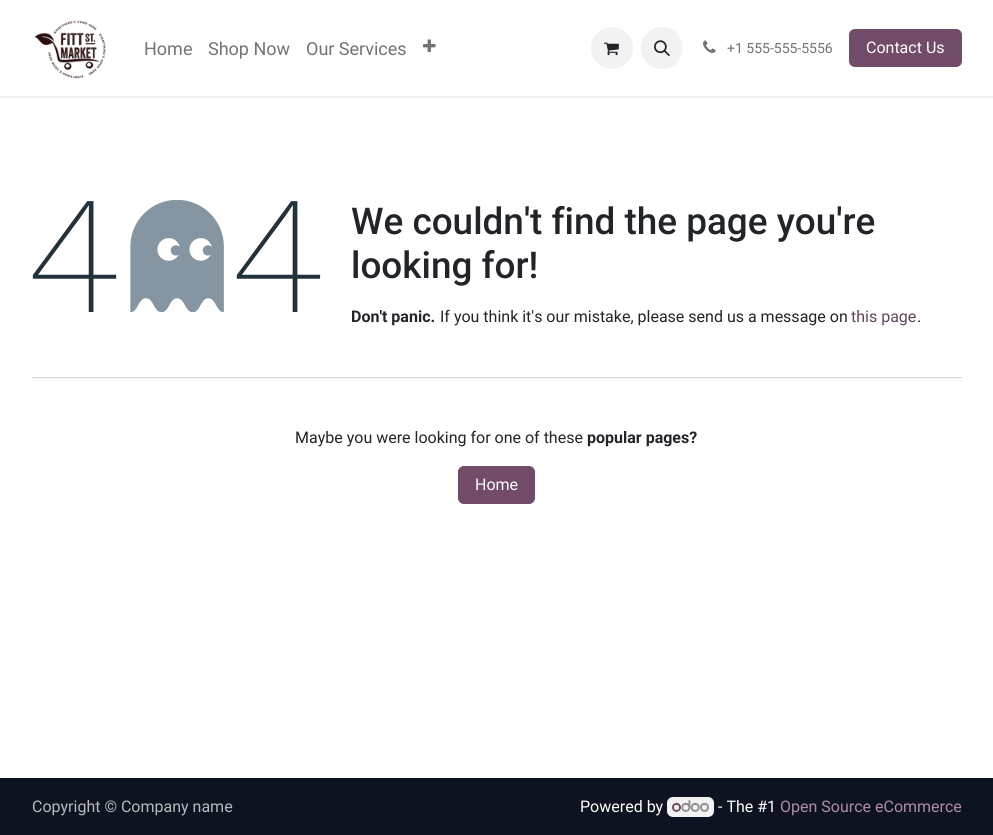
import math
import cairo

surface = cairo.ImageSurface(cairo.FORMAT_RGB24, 993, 835)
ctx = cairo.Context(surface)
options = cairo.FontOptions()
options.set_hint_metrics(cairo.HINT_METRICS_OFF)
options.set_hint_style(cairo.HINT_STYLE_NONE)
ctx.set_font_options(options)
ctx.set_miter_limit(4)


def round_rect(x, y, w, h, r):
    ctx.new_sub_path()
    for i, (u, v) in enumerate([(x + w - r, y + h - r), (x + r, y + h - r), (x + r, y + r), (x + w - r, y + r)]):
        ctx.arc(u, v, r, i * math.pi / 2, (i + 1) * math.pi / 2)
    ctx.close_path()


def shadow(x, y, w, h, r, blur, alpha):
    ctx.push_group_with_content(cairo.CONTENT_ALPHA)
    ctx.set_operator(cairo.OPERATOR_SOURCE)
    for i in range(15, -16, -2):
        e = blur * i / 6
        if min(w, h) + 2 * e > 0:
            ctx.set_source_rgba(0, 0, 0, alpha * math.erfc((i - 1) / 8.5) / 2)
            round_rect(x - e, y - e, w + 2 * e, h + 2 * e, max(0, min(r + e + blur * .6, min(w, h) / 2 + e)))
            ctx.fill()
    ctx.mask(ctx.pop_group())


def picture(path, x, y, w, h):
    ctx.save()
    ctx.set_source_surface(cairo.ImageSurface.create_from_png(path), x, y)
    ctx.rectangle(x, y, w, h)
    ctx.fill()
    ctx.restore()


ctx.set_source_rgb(1, 1, 1)
ctx.paint()
ctx.save()
ctx.rectangle(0, 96, 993, 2)
ctx.clip()
ctx.set_source_rgb(0, 0, 0)
shadow(0, 1, 993, 96, 0, 1.5, 0.1)
ctx.restore()
picture("img1.png", 34, 20, 72, 59)
ctx.select_font_face("Roboto")
ctx.set_font_size(18)
ctx.set_source_rgb(0.451, 0.451, 0.451)
ctx.move_to(144, 55)
ctx.show_text("Home")
ctx.move_to(208, 55)
ctx.show_text("Shop Now")
ctx.move_to(306, 55)
ctx.show_text("Our Services")
picture("img2.png", 423, 39, 13, 13)
ctx.set_source_rgb(0.949, 0.949, 0.949)
ctx.arc(612, 48, 21, 0, 2 * math.pi)
ctx.fill()
picture("img3.png", 604, 42, 15, 14)
ctx.arc(662, 48, 21, 0, 2 * math.pi)
ctx.fill()
picture("img4.png", 654, 40, 16, 17)
picture("img5.png", 703, 40, 13, 13)
ctx.set_font_size(14)
ctx.set_source_rgb(0.451, 0.451, 0.451)
ctx.move_to(727, 53)
ctx.show_text("+1 555-555-5556")
ctx.set_source_rgb(0.443, 0.294, 0.404)
round_rect(849.5, 29.5, 112, 37, 5.5)
ctx.fill_preserve()
ctx.set_line_width(1)
ctx.stroke()
ctx.set_font_size(16)
ctx.set_source_rgb(1, 1, 1)
ctx.move_to(866, 53)
ctx.show_text("Contact Us")
picture("img6.png", 32, 200, 289, 112)
ctx.select_font_face("Roboto Medium")
ctx.set_font_size(36.9)
ctx.set_source_rgb(0.129, 0.145, 0.161)
ctx.move_to(351, 234)
ctx.show_text("We couldn't find the page you're")
ctx.move_to(351, 278)
ctx.show_text("looking for!")
ctx.select_font_face("Roboto", cairo.FONT_SLANT_NORMAL, cairo.FONT_WEIGHT_BOLD)
ctx.set_font_size(16)
ctx.move_to(351, 322)
ctx.show_text("Don't panic.")
ctx.select_font_face("Roboto")
ctx.move_to(440, 322)
ctx.show_text("If you think it's our mistake, please send us a message on")
ctx.set_source_rgb(0.396, 0.263, 0.361)
ctx.move_to(851, 322)
ctx.show_text("this page")
ctx.set_source_rgb(0.129, 0.145, 0.161)
ctx.move_to(917, 322)
ctx.show_text(".")
ctx.set_source_rgb(0.808, 0.831, 0.855)
ctx.rectangle(32, 377, 930, 1)
ctx.fill()
ctx.set_source_rgb(0.129, 0.145, 0.161)
ctx.move_to(295, 443)
ctx.show_text("Maybe you were looking for one of these")
ctx.select_font_face("Roboto", cairo.FONT_SLANT_NORMAL, cairo.FONT_WEIGHT_BOLD)
ctx.move_to(587, 443)
ctx.show_text("popular pages?")
ctx.set_source_rgb(0.443, 0.294, 0.404)
round_rect(458.5, 466.5, 76, 37, 5.5)
ctx.fill_preserve()
ctx.stroke()
ctx.select_font_face("Roboto")
ctx.set_source_rgb(1, 1, 1)
ctx.move_to(475, 490)
ctx.show_text("Home")
ctx.set_source_rgb(0.055, 0.078, 0.129)
ctx.rectangle(0, 778, 993, 57)
ctx.fill()
ctx.set_source_rgb(0.718, 0.725, 0.737)
ctx.move_to(32, 812)
ctx.show_text("Copyright © Company name")
ctx.set_source_rgb(1, 1, 1)
ctx.move_to(580, 812)
ctx.show_text("Powered by")
ctx.set_source_rgb(0.953, 0.949, 0.949)
round_rect(667, 797, 47, 20, 6)
ctx.fill()
picture("img7.png", 672, 800, 37, 12)
ctx.set_source_rgb(1, 1, 1)
ctx.move_to(718, 812)
ctx.show_text("- The #1")
ctx.set_source_rgb(0.694, 0.541, 0.655)
ctx.move_to(780, 812)
ctx.show_text("Open Source eCommerce")
surface.write_to_png("page.png")
